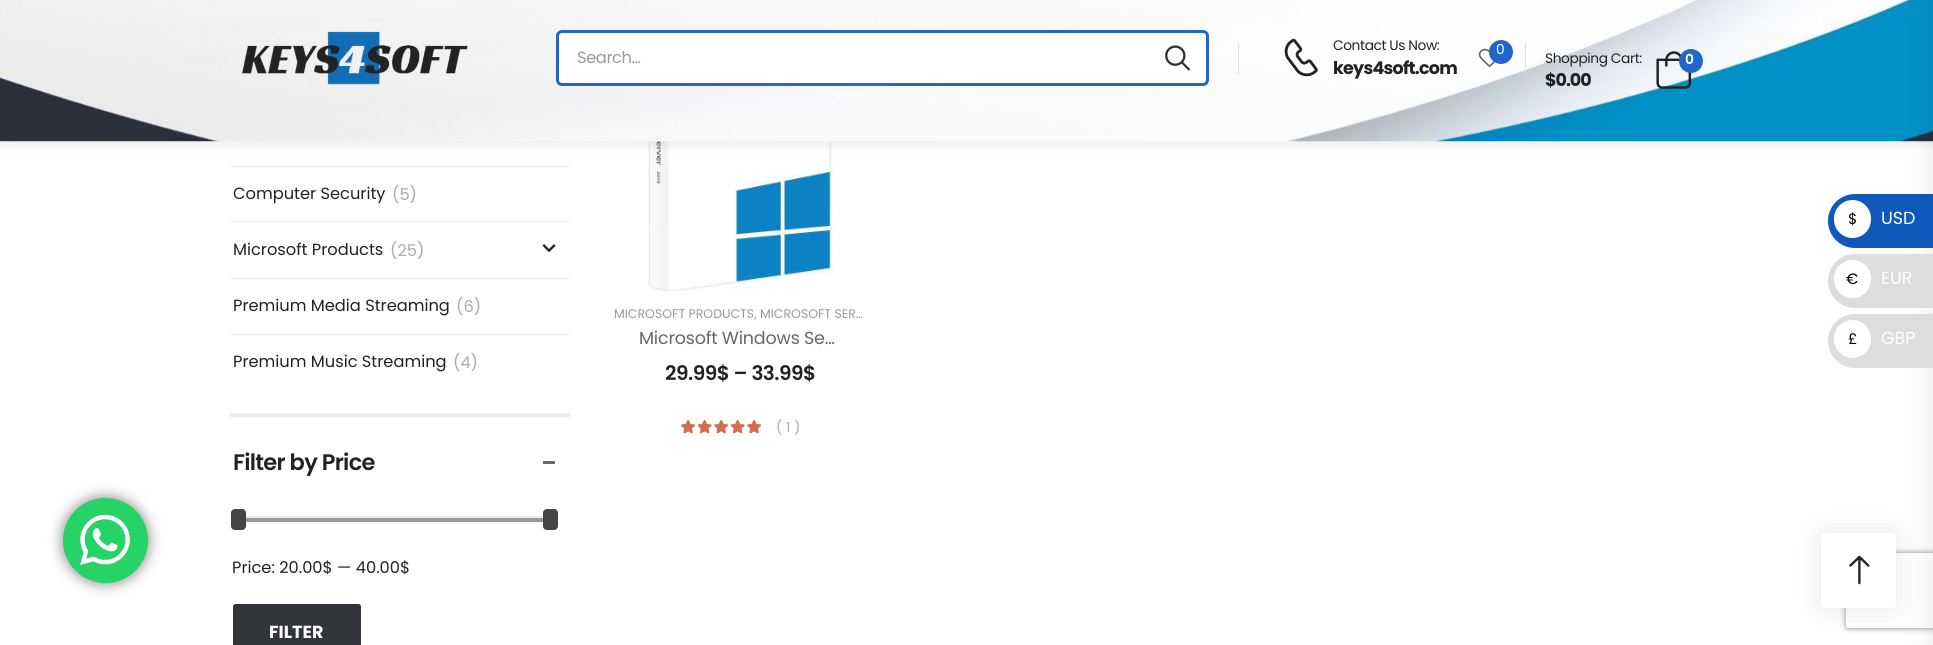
import math
import cairo

surface = cairo.ImageSurface(cairo.FORMAT_RGB24, 1933, 645)
ctx = cairo.Context(surface)
options = cairo.FontOptions()
options.set_hint_metrics(cairo.HINT_METRICS_OFF)
options.set_hint_style(cairo.HINT_STYLE_NONE)
ctx.set_font_options(options)
ctx.set_miter_limit(4)


def spaced_text(x, y, s, letter, word):
    ctx.move_to(x, y)
    for ch in s:
        ctx.show_text(ch)
        ctx.rel_move_to(letter + word * (ch == ' '), 0)


def round_rect(x, y, w, h, r):
    ctx.new_sub_path()
    for i, (u, v) in enumerate([(x + w - r, y + h - r), (x + r, y + h - r), (x + r, y + r), (x + w - r, y + r)]):
        ctx.arc(u, v, r, i * math.pi / 2, (i + 1) * math.pi / 2)
    ctx.close_path()


def shadow(x, y, w, h, r, blur, alpha):
    ctx.push_group_with_content(cairo.CONTENT_ALPHA)
    ctx.set_operator(cairo.OPERATOR_SOURCE)
    for i in range(15, -16, -2):
        e = blur * i / 6
        if min(w, h) + 2 * e > 0:
            ctx.set_source_rgba(0, 0, 0, alpha * math.erfc((i - 1) / 8.5) / 2)
            round_rect(x - e, y - e, w + 2 * e, h + 2 * e, max(0, min(r + e + blur * .6, min(w, h) / 2 + e)))
            ctx.fill()
    ctx.mask(ctx.pop_group())


def picture(path, x, y, w, h):
    ctx.save()
    ctx.set_source_surface(cairo.ImageSurface.create_from_png(path), x, y)
    ctx.rectangle(x, y, w, h)
    ctx.fill()
    ctx.restore()


ctx.set_source_rgb(1, 1, 1)
ctx.paint()
picture("img8.png", 648, 141, 186, 150)
ctx.set_source_rgb(0, 0, 0)
shadow(-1, -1, 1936, 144, 0, 6, 0.1)
picture("img1.png", 0, 0, 1933, 142)
picture("img2.png", 242, 31, 226, 54)
ctx.set_source_rgb(1, 1, 1)
round_rect(557.5, 31.5, 650, 53, 4.5)
ctx.fill_preserve()
ctx.set_source_rgb(0.133, 0.4, 0.8)
ctx.set_line_width(3)
ctx.stroke()
ctx.select_font_face("Poppins")
ctx.set_font_size(16.25)
ctx.set_source_rgb(0.6, 0.6, 0.6)
spaced_text(577, 63, "Search...", -0.4, 0)
picture("img3.png", 1165, 45, 25, 26)
ctx.set_source_rgb(0.882, 0.882, 0.882)
ctx.rectangle(1238, 43, 1, 31)
ctx.fill()
picture("img4.png", 1284, 38, 34, 39)
ctx.set_font_size(13.75)
ctx.set_source_rgb(0.133, 0.133, 0.133)
spaced_text(1333, 50, "Contact Us Now:", -0.4, 0)
ctx.select_font_face("Poppins", cairo.FONT_SLANT_NORMAL, cairo.FONT_WEIGHT_BOLD)
ctx.set_font_size(17.5)
spaced_text(1333, 74, "keys4soft.com", -0.75, 0)
picture("img5.png", 1478, 48, 17, 20)
ctx.set_source_rgb(0.133, 0.4, 0.8)
ctx.arc(1501, 52, 12, 0, 2 * math.pi)
ctx.fill()
ctx.select_font_face("Poppins")
ctx.set_font_size(13.75)
ctx.set_source_rgb(1, 1, 1)
spaced_text(1496, 54, "0", -0.4, 0)
ctx.set_source_rgb(0.882, 0.882, 0.882)
ctx.rectangle(1525, 43, 1, 31)
ctx.fill()
ctx.set_source_rgb(0.133, 0.133, 0.133)
spaced_text(1545, 63, "Shopping Cart:", -0.4, 0)
ctx.select_font_face("Poppins", cairo.FONT_SLANT_NORMAL, cairo.FONT_WEIGHT_BOLD)
ctx.set_font_size(17.5)
spaced_text(1545, 86, "$0.00", -1, 0)
picture("img6.png", 1656, 51, 36, 38)
ctx.set_source_rgb(0.133, 0.4, 0.8)
ctx.arc(1691, 61, 12, 0, 2 * math.pi)
ctx.fill()
ctx.select_font_face("Poppins SemiBold")
ctx.set_font_size(13.75)
ctx.set_source_rgb(1, 1, 1)
spaced_text(1685, 64, "0", -0.4, 0)
ctx.set_source_rgb(0, 0, 0)
shadow(1821, 533, 75, 75, 4, 12.5, 0.1)
ctx.save()
ctx.set_fill_rule(cairo.FILL_RULE_EVEN_ODD)
ctx.new_path()
ctx.move_to(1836, 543)
ctx.line_to(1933, 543)
ctx.line_to(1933, 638)
ctx.line_to(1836, 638)
ctx.close_path()
ctx.move_to(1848.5, 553)
ctx.line_to(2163.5, 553)
ctx.curve_to(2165, 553, 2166, 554, 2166, 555.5)
ctx.line_to(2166, 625.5)
ctx.curve_to(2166, 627, 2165, 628, 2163.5, 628)
ctx.line_to(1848.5, 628)
ctx.curve_to(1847, 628, 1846, 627, 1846, 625.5)
ctx.line_to(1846, 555.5)
ctx.curve_to(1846, 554, 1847, 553, 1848.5, 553)
ctx.close_path()
ctx.clip()
ctx.set_source_rgb(0.502, 0.502, 0.502)
shadow(1846, 553, 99, 75, 2.5, 3, 1)
ctx.restore()
ctx.set_source_rgb(1, 1, 1)
round_rect(1821, 533, 75, 75, 4)
ctx.fill()
ctx.set_source_rgb(0, 0, 0)
shadow(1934, 3, 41, 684, 0, 14, 0.1)
ctx.set_source_rgb(0.933, 0.933, 0.933)
ctx.rectangle(230, 413, 340, 4)
ctx.fill()
ctx.rectangle(230, 166, 340, 1)
ctx.fill()
ctx.rectangle(230, 221, 340, 1)
ctx.fill()
ctx.select_font_face("Poppins")
ctx.set_font_size(16.25)
ctx.set_source_rgb(0.133, 0.133, 0.133)
ctx.move_to(233, 199)
ctx.show_text("Computer Security")
ctx.set_source_rgb(0.667, 0.667, 0.667)
ctx.move_to(392, 200)
ctx.show_text("(5)")
ctx.set_source_rgb(0.933, 0.933, 0.933)
ctx.rectangle(230, 278, 340, 1)
ctx.fill()
ctx.set_source_rgb(0.133, 0.133, 0.133)
ctx.move_to(233, 255)
ctx.show_text("Microsoft Products")
picture("img7.png", 542, 244, 14, 8)
ctx.set_source_rgb(0.667, 0.667, 0.667)
ctx.move_to(390, 256)
ctx.show_text("(25)")
ctx.set_source_rgb(0.933, 0.933, 0.933)
ctx.rectangle(230, 334, 340, 1)
ctx.fill()
ctx.set_source_rgb(0.133, 0.133, 0.133)
ctx.move_to(233, 311)
ctx.show_text("Premium Media Streaming")
ctx.set_source_rgb(0.667, 0.667, 0.667)
ctx.move_to(456, 312)
ctx.show_text("(6)")
ctx.set_source_rgb(0.133, 0.133, 0.133)
ctx.move_to(233, 367)
ctx.show_text("Premium Music Streaming")
ctx.set_source_rgb(0.667, 0.667, 0.667)
ctx.move_to(453, 368)
ctx.show_text("(4)")
ctx.select_font_face("Poppins SemiBold")
ctx.set_font_size(22.5)
ctx.set_source_rgb(0.133, 0.133, 0.133)
spaced_text(233, 470, "Filter by Price", -0.7, 0)
ctx.set_source_rgb(0.4, 0.4, 0.4)
ctx.rectangle(543, 461, 12, 3)
ctx.fill()
ctx.set_source_rgb(0.933, 0.933, 0.933)
ctx.rectangle(239, 516, 310, 2)
ctx.fill()
ctx.set_source_rgb(0.6, 0.6, 0.6)
ctx.rectangle(239, 518, 310, 4)
ctx.fill()
ctx.set_source_rgb(0.267, 0.267, 0.267)
round_rect(231, 509, 15, 21, 4)
ctx.fill()
round_rect(543, 509, 15, 21, 4)
ctx.fill()
ctx.select_font_face("Poppins")
ctx.set_font_size(16.25)
ctx.set_source_rgb(0.133, 0.133, 0.133)
ctx.move_to(232, 573)
ctx.show_text("Price: 20.00$ — 40.00$")
ctx.set_source_rgb(0.192, 0.204, 0.22)
round_rect(234.5, 605.5, 125, 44, 1)
ctx.fill_preserve()
ctx.stroke()
ctx.select_font_face("Poppins", cairo.FONT_SLANT_NORMAL, cairo.FONT_WEIGHT_BOLD)
ctx.set_font_size(17.5)
ctx.set_source_rgb(1, 1, 1)
ctx.move_to(269, 638)
ctx.show_text("FILTER")
ctx.select_font_face("Poppins")
ctx.set_font_size(12.5)
ctx.set_source_rgb(0.6, 0.6, 0.6)
ctx.move_to(614, 318)
ctx.show_text("MICROSOFT PRODUCTS, MICROSOFT SER…")
ctx.set_font_size(17.5)
ctx.set_source_rgb(0.4, 0.4, 0.4)
spaced_text(639, 344, "Microsoft Windows Se…", -0.2, 0)
ctx.select_font_face("Poppins SemiBold")
ctx.set_font_size(20)
ctx.set_source_rgb(0.133, 0.133, 0.133)
spaced_text(665, 380, "29.99$ – 33.99$", -0.5, 0)
picture("img9.png", 681, 420, 80, 14)
picture("img10.png", 681, 420, 80, 14)
ctx.select_font_face("Poppins")
ctx.set_font_size(13.75)
ctx.set_source_rgb(0.667, 0.667, 0.667)
ctx.move_to(776, 432)
ctx.show_text("( 1")
ctx.save()
ctx.rectangle(776, 420, 24, 15)
ctx.clip()
ctx.move_to(794, 432)
ctx.show_text(")")
ctx.restore()
ctx.set_source_rgb(0.063, 0.345, 0.737)
ctx.new_path()
ctx.move_to(1855, 194)
ctx.line_to(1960, 194)
ctx.line_to(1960, 248)
ctx.line_to(1855, 248)
ctx.curve_to(1840, 248, 1828, 236, 1828, 221)
ctx.curve_to(1828, 206, 1840, 194, 1855, 194)
ctx.close_path()
ctx.fill()
ctx.set_source_rgb(1, 1, 1)
round_rect(1834, 200, 37, 38, 18.5)
ctx.fill()
ctx.set_font_size(15)
ctx.set_source_rgb(0, 0, 0)
ctx.move_to(1848, 224)
ctx.show_text("$")
ctx.set_font_size(17.5)
ctx.set_source_rgb(1, 1, 1)
ctx.move_to(1881, 224)
ctx.show_text("USD")
ctx.set_source_rgb(0.867, 0.867, 0.867)
ctx.new_path()
ctx.move_to(1855, 254)
ctx.line_to(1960, 254)
ctx.line_to(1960, 308)
ctx.line_to(1855, 308)
ctx.curve_to(1840, 308, 1828, 296, 1828, 281)
ctx.curve_to(1828, 266, 1840, 254, 1855, 254)
ctx.close_path()
ctx.fill()
ctx.set_source_rgb(1, 1, 1)
round_rect(1834, 260, 37, 38, 18.5)
ctx.fill()
ctx.set_font_size(15)
ctx.set_source_rgb(0, 0, 0)
ctx.move_to(1846, 284)
ctx.show_text("€")
ctx.set_font_size(17.5)
ctx.set_source_rgb(1, 1, 1)
ctx.move_to(1881, 284)
ctx.show_text("EUR")
ctx.set_source_rgb(0.867, 0.867, 0.867)
ctx.new_path()
ctx.move_to(1855, 314)
ctx.line_to(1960, 314)
ctx.line_to(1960, 368)
ctx.line_to(1855, 368)
ctx.curve_to(1840, 368, 1828, 356, 1828, 341)
ctx.curve_to(1828, 326, 1840, 314, 1855, 314)
ctx.close_path()
ctx.fill()
ctx.set_source_rgb(1, 1, 1)
round_rect(1834, 320, 37, 38, 18.5)
ctx.fill()
ctx.set_font_size(15)
ctx.set_source_rgb(0, 0, 0)
ctx.move_to(1848, 344)
ctx.show_text("£")
ctx.set_font_size(17.5)
ctx.set_source_rgb(1, 1, 1)
ctx.move_to(1881, 344)
ctx.show_text("GBP")
ctx.set_source_rgb(0, 0, 0)
shadow(63, 498, 85, 85, 42.5, 7, 0.5)
ctx.set_source_rgb(0.145, 0.827, 0.4)
ctx.arc(105.5, 540.5, 42.5, 0, 2 * math.pi)
ctx.fill()
picture("img11.png", 80, 515, 50, 50)
picture("img12.png", 1849, 555, 21, 30)
surface.write_to_png("page.png")
